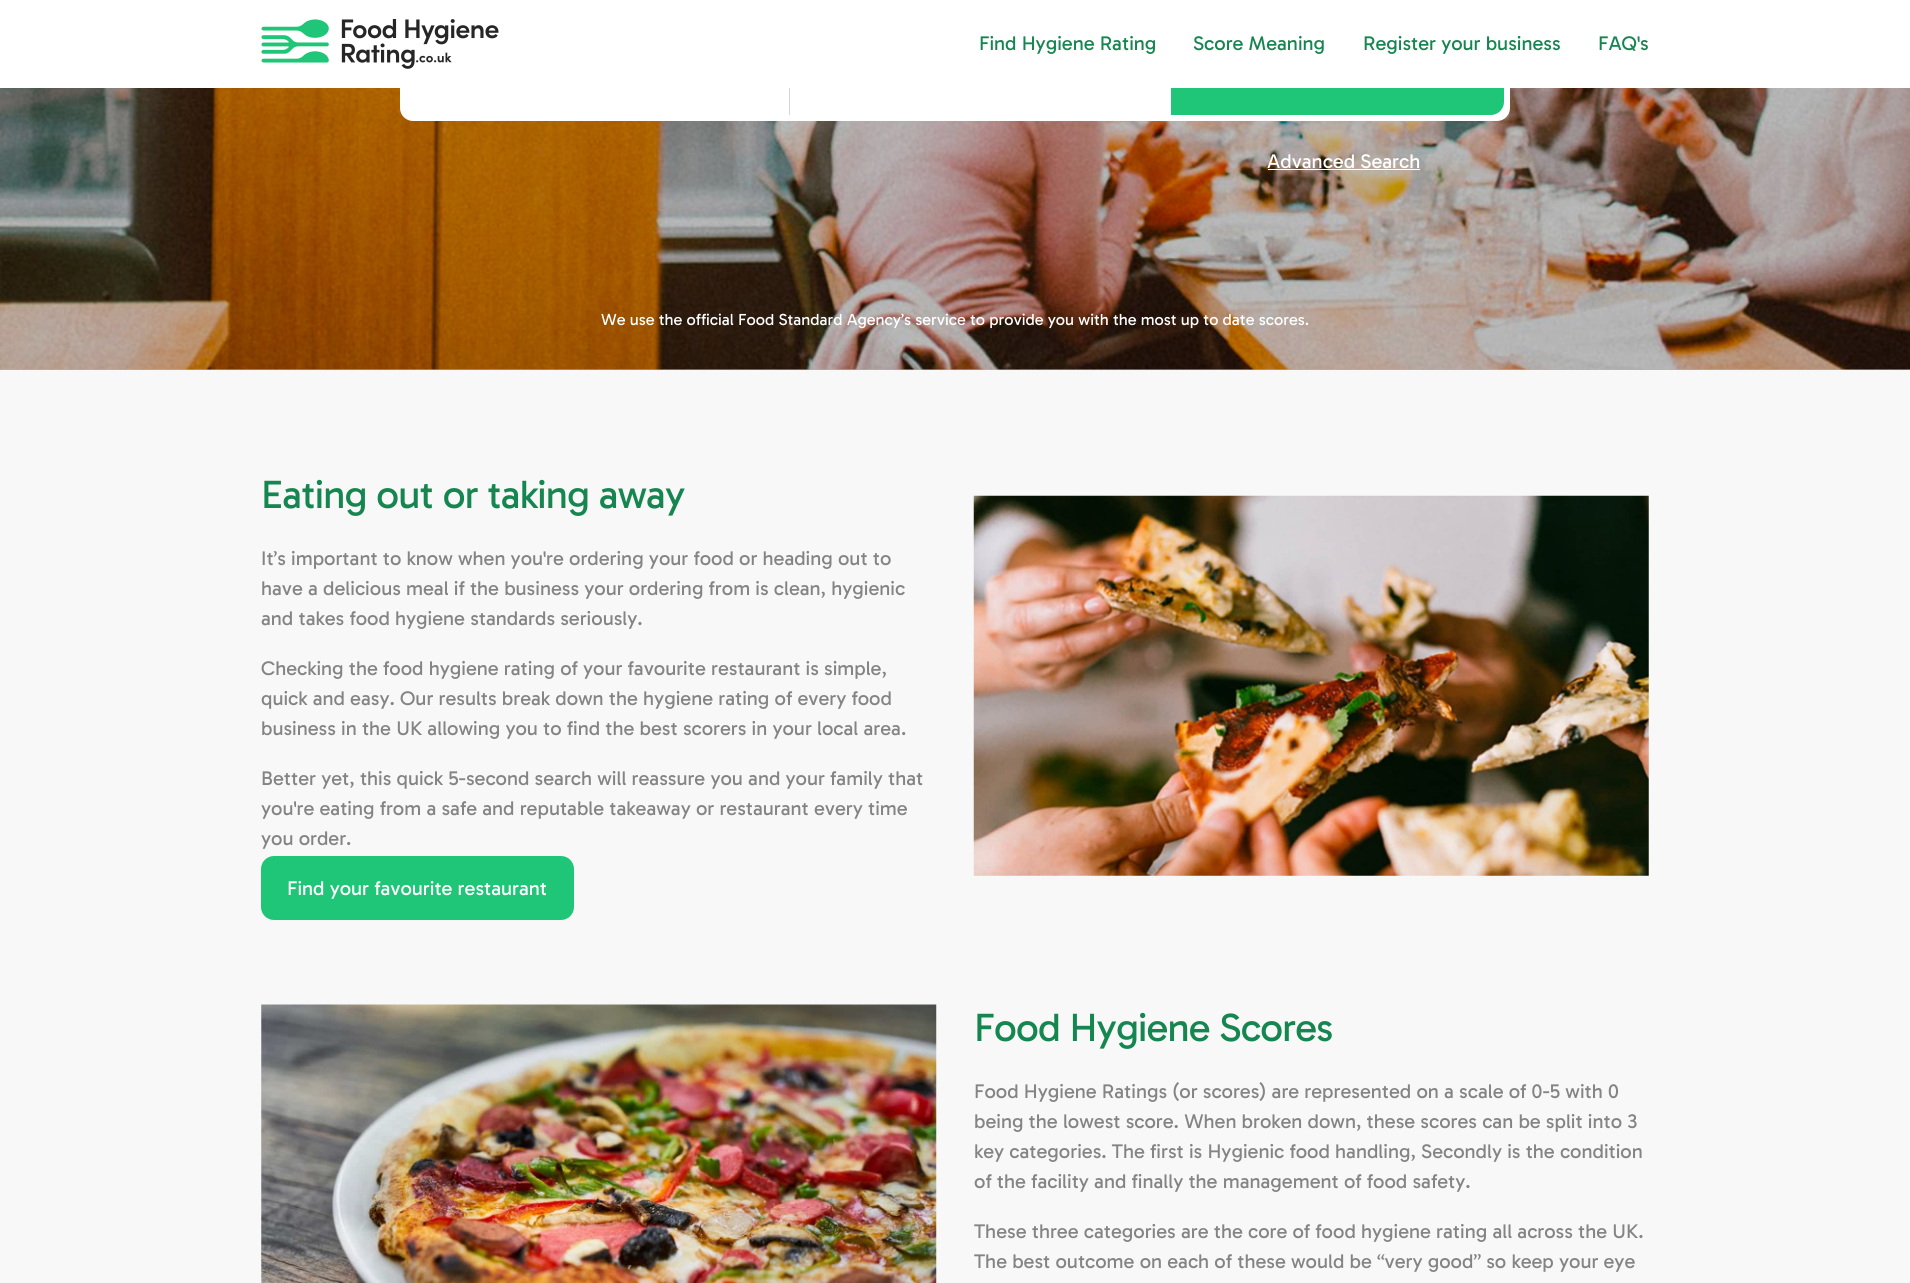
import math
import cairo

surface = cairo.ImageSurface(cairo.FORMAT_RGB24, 1910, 1283)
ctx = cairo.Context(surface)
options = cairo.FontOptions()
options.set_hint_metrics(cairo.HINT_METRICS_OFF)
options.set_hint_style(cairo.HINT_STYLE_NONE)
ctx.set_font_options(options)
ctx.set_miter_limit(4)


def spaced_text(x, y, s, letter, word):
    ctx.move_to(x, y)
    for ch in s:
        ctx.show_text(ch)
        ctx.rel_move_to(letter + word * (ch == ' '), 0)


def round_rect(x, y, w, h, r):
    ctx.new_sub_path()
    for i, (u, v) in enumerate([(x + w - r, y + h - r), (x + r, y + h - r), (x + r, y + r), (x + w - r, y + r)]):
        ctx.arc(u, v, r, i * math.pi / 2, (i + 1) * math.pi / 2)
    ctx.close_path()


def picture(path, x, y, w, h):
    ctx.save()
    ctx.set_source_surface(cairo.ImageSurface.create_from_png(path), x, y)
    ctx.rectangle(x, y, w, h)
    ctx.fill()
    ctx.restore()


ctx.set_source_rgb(0.969, 0.969, 0.969)
ctx.paint()
ctx.set_source_rgb(0.718, 0.718, 0.718)
ctx.rectangle(0, 369, 1910, 1)
ctx.fill()
picture("img2.png", 0, 88, 1910, 282)
ctx.set_source_rgb(1, 1, 1)
round_rect(400, 9, 1110, 112, 13)
ctx.fill()
ctx.set_source_rgb(0.125, 0.776, 0.467)
ctx.new_path()
ctx.move_to(1171, 15)
ctx.line_to(1491, 15)
ctx.curve_to(1498, 15, 1504, 21, 1504, 28)
ctx.line_to(1504, 102)
ctx.curve_to(1504, 109, 1498, 115, 1491, 115)
ctx.line_to(1171, 115)
ctx.close_path()
ctx.fill()
ctx.set_source_rgb(1, 1, 1)
ctx.rectangle(0, 0, 1910, 88)
ctx.fill()
picture("img1.png", 261, 19, 238, 50)
ctx.select_font_face("Gabarito")
ctx.set_font_size(20)
ctx.set_source_rgb(0.086, 0.525, 0.318)
ctx.move_to(979, 50)
ctx.show_text("Find Hygiene Rating")
ctx.move_to(1193, 50)
ctx.show_text("Score Meaning")
ctx.move_to(1363, 50)
ctx.show_text("Register your business")
ctx.move_to(1598, 50)
ctx.show_text("FAQ's")
ctx.set_source_rgb(0.839, 0.839, 0.839)
ctx.rectangle(789, 88, 1, 27)
ctx.fill()
ctx.set_source_rgb(1, 1, 1)
ctx.move_to(1267, 168)
ctx.show_text("Advanced Search")
ctx.rectangle(1268, 169, 152, 1)
ctx.fill()
ctx.set_font_size(16.25)
ctx.move_to(601, 325)
ctx.show_text("We use the official Food Standard Agency’s service to provide you with the most up to date scores.")
ctx.set_font_size(40)
ctx.set_source_rgb(0.086, 0.525, 0.318)
spaced_text(261, 508, "Eating out or taking away", -0.8, 0)
ctx.set_font_size(20)
ctx.set_source_rgb(0.518, 0.518, 0.518)
ctx.move_to(261, 565)
ctx.show_text("It’s important to know when you're ordering your food or heading out to")
ctx.move_to(261, 595)
ctx.show_text("have a delicious meal if the business your ordering from is clean, hygienic")
ctx.move_to(261, 625)
ctx.show_text("and takes food hygiene standards seriously.")
ctx.move_to(261, 675)
ctx.show_text("Checking the food hygiene rating of your favourite restaurant is simple,")
ctx.move_to(261, 705)
ctx.show_text("quick and easy. Our results break down the hygiene rating of every food")
ctx.move_to(261, 735)
ctx.show_text("business in the UK allowing you to find the best scorers in your local area.")
ctx.move_to(261, 785)
ctx.show_text("Better yet, this quick 5-second search will reassure you and your family that")
ctx.move_to(261, 815)
ctx.show_text("you're eating from a safe and reputable takeaway or restaurant every time")
ctx.move_to(261, 845)
ctx.show_text("you order.")
ctx.set_source_rgb(0.125, 0.776, 0.467)
round_rect(261, 856, 313, 64, 13)
ctx.fill()
ctx.set_source_rgb(1, 1, 1)
ctx.move_to(287, 895)
ctx.show_text("Find your favourite restaurant")
picture("img3.png", 973, 495, 676, 381)
picture("img4.png", 261, 1004, 676, 279)
ctx.set_font_size(40)
ctx.set_source_rgb(0.086, 0.525, 0.318)
spaced_text(974, 1041, "Food Hygiene Scores", -0.8, 0)
ctx.set_font_size(20)
ctx.set_source_rgb(0.518, 0.518, 0.518)
ctx.move_to(974, 1098)
ctx.show_text("Food Hygiene Ratings (or scores) are represented on a scale of 0-5 with 0")
ctx.move_to(974, 1128)
ctx.show_text("being the lowest score. When broken down, these scores can be split into 3")
ctx.move_to(974, 1158)
ctx.show_text("key categories. The first is Hygienic food handling, Secondly is the condition")
ctx.move_to(974, 1188)
ctx.show_text("of the facility and finally the management of food safety.")
ctx.move_to(974, 1238)
ctx.show_text("These three categories are the core of food hygiene rating all across the UK.")
ctx.move_to(974, 1268)
ctx.show_text("The best outcome on each of these would be “very good” so keep your eye")
surface.write_to_png("page.png")
